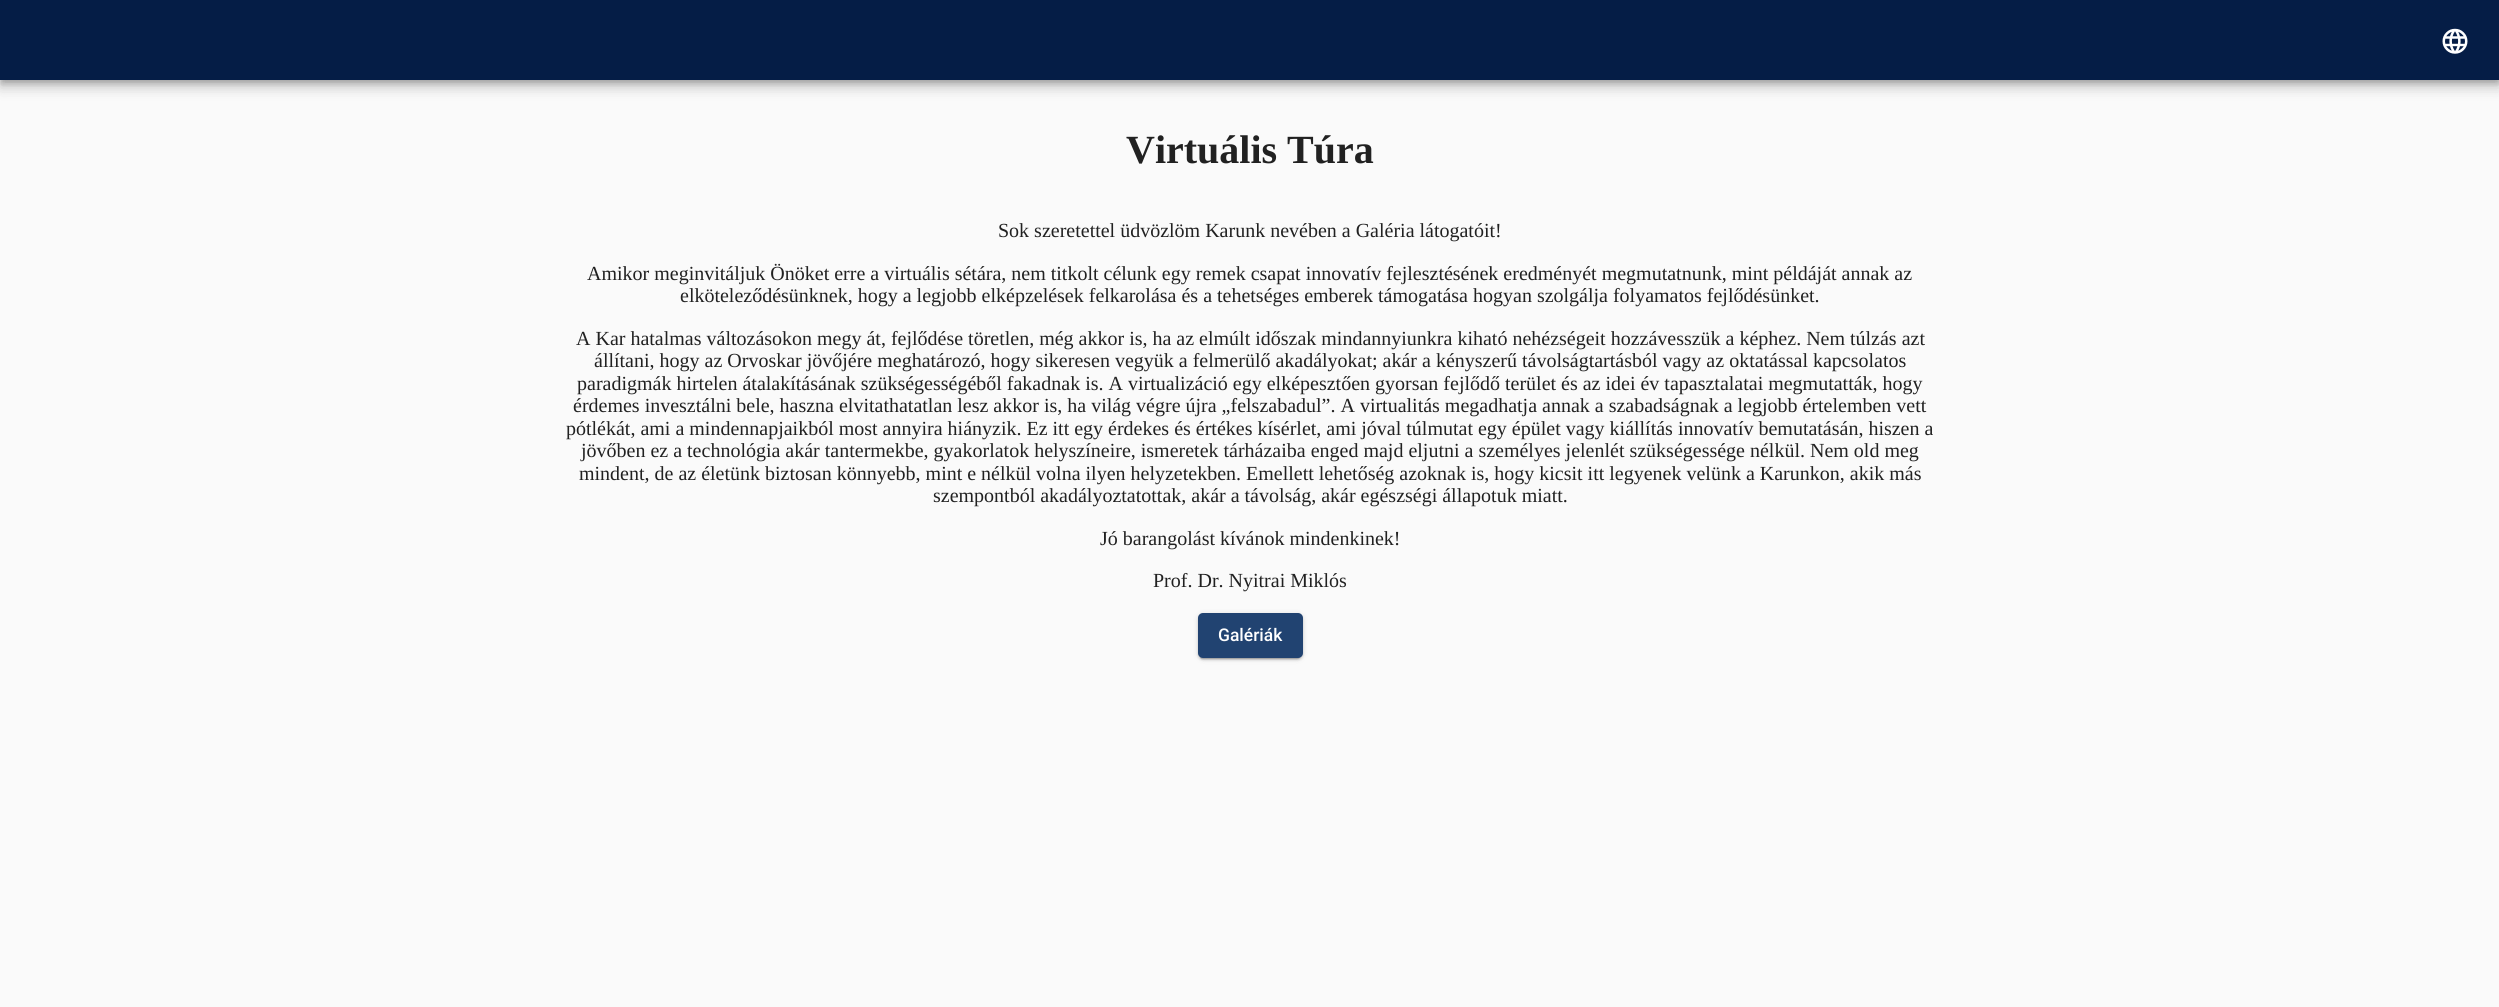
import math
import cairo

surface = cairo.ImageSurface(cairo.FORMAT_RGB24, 2499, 1007)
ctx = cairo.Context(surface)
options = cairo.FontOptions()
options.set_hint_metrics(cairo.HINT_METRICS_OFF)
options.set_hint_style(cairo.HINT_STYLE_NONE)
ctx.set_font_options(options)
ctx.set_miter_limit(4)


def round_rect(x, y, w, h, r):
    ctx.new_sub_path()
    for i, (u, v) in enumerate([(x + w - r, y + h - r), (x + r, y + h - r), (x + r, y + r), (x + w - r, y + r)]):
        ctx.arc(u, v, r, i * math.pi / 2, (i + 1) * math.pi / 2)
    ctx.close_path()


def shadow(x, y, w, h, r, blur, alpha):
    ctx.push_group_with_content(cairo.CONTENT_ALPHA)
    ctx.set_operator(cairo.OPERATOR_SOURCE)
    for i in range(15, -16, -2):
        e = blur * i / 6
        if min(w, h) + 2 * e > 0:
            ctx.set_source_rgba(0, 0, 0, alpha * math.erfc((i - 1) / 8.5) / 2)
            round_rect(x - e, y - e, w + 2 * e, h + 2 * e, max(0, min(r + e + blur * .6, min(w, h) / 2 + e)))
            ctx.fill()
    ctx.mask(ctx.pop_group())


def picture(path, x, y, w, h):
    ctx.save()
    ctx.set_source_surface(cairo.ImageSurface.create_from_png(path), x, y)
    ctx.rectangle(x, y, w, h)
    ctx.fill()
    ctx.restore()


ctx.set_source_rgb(0.98, 0.98, 0.98)
ctx.paint()
ctx.set_source_rgb(0, 0, 0)
shadow(0, 1, 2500, 80, 0, 11, 0.12)
shadow(0, 8, 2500, 80, 0, 6, 0.14)
shadow(1, 5, 2498, 78, 0, 3, 0.2)
ctx.set_source_rgb(0.02, 0.114, 0.275)
ctx.rectangle(0, 0, 2499, 80)
ctx.fill()
picture("img1.png", 2442, 28, 26, 26)
ctx.select_font_face("Liberation Serif", cairo.FONT_SLANT_NORMAL, cairo.FONT_WEIGHT_BOLD)
ctx.set_font_size(40)
ctx.set_source_rgb(0.129, 0.129, 0.129)
ctx.move_to(1126, 163)
ctx.show_text("Virtuális Túra")
ctx.select_font_face("Liberation Serif")
ctx.set_font_size(20)
ctx.move_to(998, 237)
ctx.show_text("Sok szeretettel üdvözlöm Karunk nevében a Galéria látogatóit!")
ctx.move_to(587, 280)
ctx.show_text("Amikor meginvitáljuk Önöket erre a virtuális sétára, nem titkolt célunk egy remek csapat innovatív fejlesztésének eredményét megmutatnunk, mint példáját annak az")
ctx.move_to(680, 302)
ctx.show_text("elköteleződésünknek, hogy a legjobb elképzelések felkarolása és a tehetséges emberek támogatása hogyan szolgálja folyamatos fejlődésünket.")
ctx.move_to(576, 345)
ctx.show_text("A Kar hatalmas változásokon megy át, fejlődése töretlen, még akkor is, ha az elmúlt időszak mindannyiunkra kiható nehézségeit hozzávesszük a képhez. Nem túlzás azt")
ctx.move_to(594, 367)
ctx.show_text("állítani, hogy az Orvoskar jövőjére meghatározó, hogy sikeresen vegyük a felmerülő akadályokat; akár a kényszerű távolságtartásból vagy az oktatással kapcsolatos")
ctx.move_to(577, 390)
ctx.show_text("paradigmák hirtelen átalakításának szükségességéből fakadnak is. A virtualizáció egy elképesztően gyorsan fejlődő terület és az idei év tapasztalatai megmutatták, hogy")
ctx.move_to(573, 412)
ctx.show_text("érdemes invesztálni bele, haszna elvitathatatlan lesz akkor is, ha világ végre újra „felszabadul”. A virtualitás megadhatja annak a szabadságnak a legjobb értelemben vett")
ctx.move_to(566, 435)
ctx.show_text("pótlékát, ami a mindennapjaikból most annyira hiányzik. Ez itt egy érdekes és értékes kísérlet, ami jóval túlmutat egy épület vagy kiállítás innovatív bemutatásán, hiszen a")
ctx.move_to(581, 457)
ctx.show_text("jövőben ez a technológia akár tantermekbe, gyakorlatok helyszíneire, ismeretek tárházaiba enged majd eljutni a személyes jelenlét szükségessége nélkül. Nem old meg")
ctx.move_to(579, 480)
ctx.show_text("mindent, de az életünk biztosan könnyebb, mint e nélkül volna ilyen helyzetekben. Emellett lehetőség azoknak is, hogy kicsit itt legyenek velünk a Karunkon, akik más")
ctx.move_to(933, 502)
ctx.show_text("szempontból akadályoztatottak, akár a távolság, akár egészségi állapotuk miatt.")
ctx.move_to(1100, 545)
ctx.show_text("Jó barangolást kívánok mindenkinek!")
ctx.move_to(1153, 587)
ctx.show_text("Prof. Dr. Nyitrai Miklós")
ctx.set_source_rgb(0, 0, 0)
shadow(1198, 614, 105, 45, 5, 3, 0.12)
shadow(1198, 615, 105, 45, 5, 1, 0.14)
shadow(1200, 619, 100, 40, 2.5, 0.5, 0.2)
ctx.set_source_rgb(0.129, 0.263, 0.443)
round_rect(1198, 613, 105, 45, 5)
ctx.fill()
ctx.select_font_face("Roboto Medium")
ctx.set_font_size(17.5)
ctx.set_source_rgb(1, 1, 1)
ctx.move_to(1218, 641)
ctx.show_text("Galériák")
surface.write_to_png("page.png")
